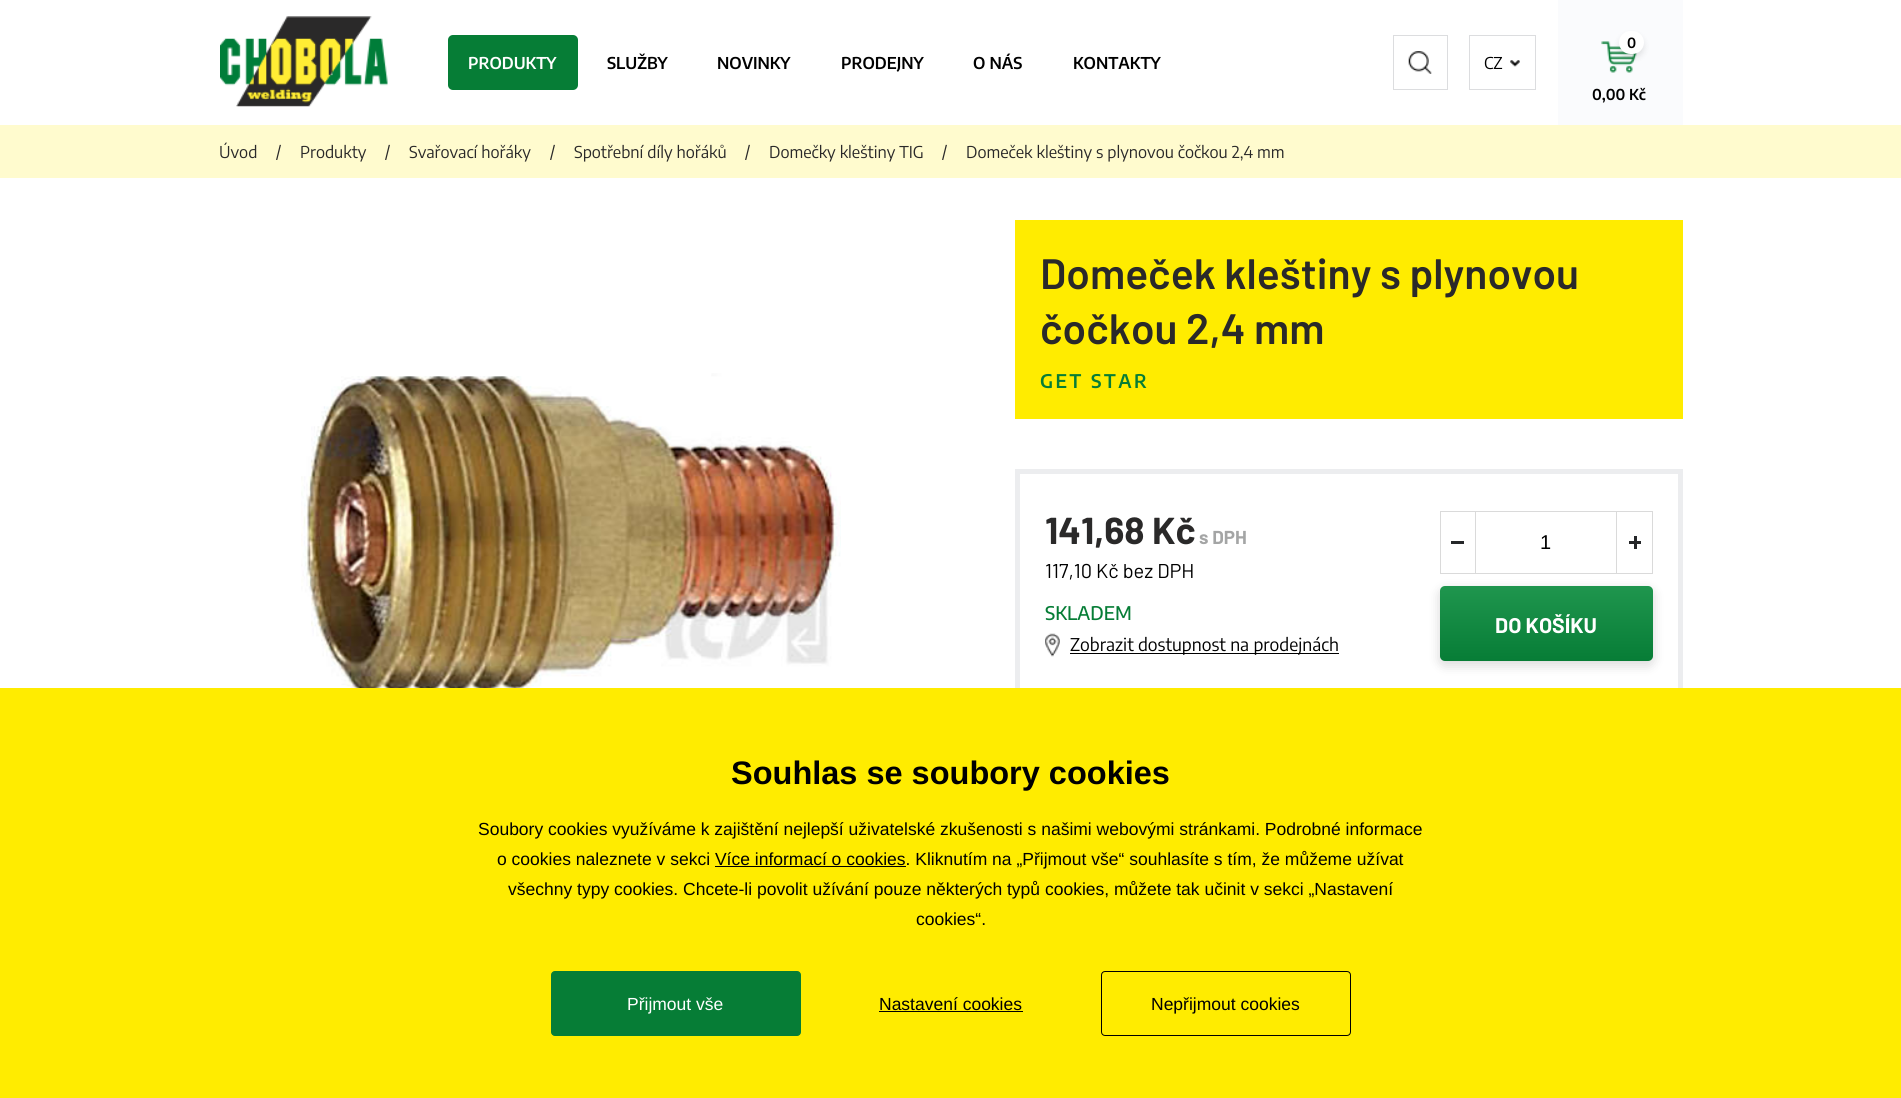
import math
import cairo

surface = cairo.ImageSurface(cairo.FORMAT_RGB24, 1901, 1098)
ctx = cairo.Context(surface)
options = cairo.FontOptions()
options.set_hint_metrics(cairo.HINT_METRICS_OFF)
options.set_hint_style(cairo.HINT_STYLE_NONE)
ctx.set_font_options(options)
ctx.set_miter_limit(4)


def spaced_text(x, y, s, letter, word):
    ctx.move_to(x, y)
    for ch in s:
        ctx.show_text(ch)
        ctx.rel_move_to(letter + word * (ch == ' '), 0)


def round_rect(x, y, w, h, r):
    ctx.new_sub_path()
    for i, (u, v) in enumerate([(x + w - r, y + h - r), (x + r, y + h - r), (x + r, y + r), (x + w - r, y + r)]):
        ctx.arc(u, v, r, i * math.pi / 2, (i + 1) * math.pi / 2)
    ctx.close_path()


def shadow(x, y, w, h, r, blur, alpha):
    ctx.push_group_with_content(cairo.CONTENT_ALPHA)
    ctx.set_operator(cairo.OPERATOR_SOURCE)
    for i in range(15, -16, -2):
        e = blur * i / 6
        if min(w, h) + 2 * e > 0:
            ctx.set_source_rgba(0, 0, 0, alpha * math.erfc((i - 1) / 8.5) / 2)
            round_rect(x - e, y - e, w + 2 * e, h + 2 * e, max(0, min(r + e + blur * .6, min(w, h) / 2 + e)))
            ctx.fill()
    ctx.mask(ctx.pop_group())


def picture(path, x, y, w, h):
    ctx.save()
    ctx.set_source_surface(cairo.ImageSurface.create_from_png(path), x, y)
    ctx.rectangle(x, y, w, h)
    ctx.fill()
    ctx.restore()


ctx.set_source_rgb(1, 1, 1)
ctx.paint()
picture("img1.png", 220, 16, 168, 91)
ctx.set_source_rgb(0.027, 0.49, 0.212)
round_rect(448, 35, 130, 55, 5)
ctx.fill()
ctx.select_font_face("Encode Sans Condensed SemiBold")
ctx.set_font_size(16.25)
ctx.set_source_rgb(1, 1, 1)
ctx.move_to(468, 69)
ctx.show_text("PRODUKTY")
ctx.set_source_rgb(0, 0, 0)
ctx.move_to(607, 69)
ctx.show_text("SLUŽBY")
ctx.move_to(717, 69)
ctx.show_text("NOVINKY")
ctx.move_to(841, 69)
ctx.show_text("PRODEJNY")
ctx.move_to(973, 69)
ctx.show_text("O NÁS")
ctx.move_to(1073, 69)
ctx.show_text("KONTAKTY")
ctx.rectangle(1393.5, 35.5, 54, 54)
ctx.set_source_rgb(0.863, 0.867, 0.875)
ctx.set_line_width(1)
ctx.stroke()
picture("img2.png", 1408, 51, 24, 23)
ctx.rectangle(1469.5, 35.5, 66, 54)
ctx.stroke()
ctx.select_font_face("Encode Sans Condensed")
ctx.set_source_rgb(0, 0, 0)
ctx.move_to(1484, 69)
ctx.show_text("CZ")
picture("img3.png", 1510, 60, 10, 7)
ctx.set_source_rgb(0.98, 0.984, 0.992)
ctx.rectangle(1558, 0, 125, 125)
ctx.fill()
picture("img4.png", 1601, 41, 37, 32)
ctx.set_source_rgb(0, 0, 0)
shadow(1619, 35, 25, 23, 11.5, 3, 0.1)
ctx.set_source_rgb(1, 1, 1)
round_rect(1619, 31, 25, 23, 11.5)
ctx.fill()
ctx.select_font_face("Encode Sans Condensed SemiBold")
ctx.set_font_size(14)
ctx.set_source_rgb(0, 0, 0)
ctx.move_to(1627, 48)
ctx.show_text("0")
ctx.set_font_size(15)
ctx.move_to(1592, 100)
ctx.show_text("0,00 Kč")
ctx.set_source_rgb(1, 0.984, 0.808)
ctx.rectangle(0, 125, 1901, 53)
ctx.fill()
ctx.select_font_face("Encode Sans Condensed")
ctx.set_font_size(16.25)
ctx.set_source_rgb(0.165, 0.161, 0.161)
ctx.move_to(219, 158)
ctx.show_text("Úvod")
ctx.move_to(276, 158)
ctx.show_text("/")
ctx.move_to(300, 158)
ctx.show_text("Produkty")
ctx.move_to(385, 158)
ctx.show_text("/")
ctx.move_to(409, 158)
ctx.show_text("Svařovací hořáky")
ctx.move_to(550, 158)
ctx.show_text("/")
ctx.move_to(574, 158)
ctx.show_text("Spotřební díly hořáků")
ctx.move_to(745, 158)
ctx.show_text("/")
ctx.move_to(769, 158)
ctx.show_text("Domečky kleštiny TIG")
ctx.move_to(942, 158)
ctx.show_text("/")
ctx.move_to(966, 158)
ctx.show_text("Domeček kleštiny s plynovou čočkou 2,4 mm")
ctx.set_source_rgb(1, 0.925, 0)
ctx.rectangle(1015, 220, 668, 199)
ctx.fill()
ctx.select_font_face("Barlow SemiBold")
ctx.set_font_size(42.5)
ctx.set_source_rgb(0.165, 0.161, 0.161)
ctx.move_to(1040, 289)
ctx.show_text("Domeček kleštiny s plynovou")
ctx.move_to(1040, 344)
ctx.show_text("čočkou 2,4 mm")
ctx.select_font_face("Encode Sans Condensed SemiBold")
ctx.set_font_size(18.75)
ctx.set_source_rgb(0.027, 0.49, 0.212)
spaced_text(1040, 388, "GET STAR", 2.5, 0)
picture("img5.png", 301, 373, 540, 315)
ctx.rectangle(1017.5, 471.5, 663, 230)
ctx.set_source_rgb(0.925, 0.929, 0.937)
ctx.set_line_width(5)
ctx.stroke()
ctx.select_font_face("Barlow", cairo.FONT_SLANT_NORMAL, cairo.FONT_WEIGHT_BOLD)
ctx.set_font_size(37.5)
ctx.set_source_rgb(0.165, 0.161, 0.161)
ctx.move_to(1045, 544)
ctx.show_text("141,68 Kč")
ctx.set_font_size(18.75)
ctx.set_source_rgb(0.643, 0.647, 0.647)
ctx.move_to(1199, 544)
ctx.show_text("s DPH")
ctx.select_font_face("Barlow")
ctx.set_font_size(20)
ctx.set_source_rgb(0, 0, 0)
ctx.move_to(1045, 578)
ctx.show_text("117,10 Kč bez DPH")
ctx.select_font_face("Encode Sans Condensed Medium")
ctx.set_font_size(18.75)
ctx.set_source_rgb(0.027, 0.49, 0.212)
ctx.move_to(1045, 620)
ctx.show_text("SKLADEM")
picture("img6.png", 1045, 633, 15, 24)
ctx.set_source_rgb(0, 0, 0)
ctx.rectangle(1070, 653, 269, 1)
ctx.fill()
ctx.select_font_face("Encode Sans Condensed")
ctx.set_font_size(17.5)
ctx.move_to(1070, 651)
ctx.show_text("Zobrazit dostupnost na prodejnách")
ctx.set_source_rgb(0.031, 0.031, 0.031)
shadow(1440, 590, 213, 75, 5, 6, 0.16)
ctx.rectangle(1440.5, 511.5, 212, 62)
ctx.set_source_rgb(0.855, 0.855, 0.855)
ctx.set_line_width(1)
ctx.stroke()
ctx.rectangle(1475, 511, 1, 63)
ctx.fill()
ctx.set_source_rgb(0.145, 0.153, 0.161)
ctx.rectangle(1451, 541, 13, 3)
ctx.fill()
ctx.select_font_face("Liberation Sans")
ctx.set_font_size(20)
ctx.set_source_rgb(0, 0, 0)
ctx.move_to(1540, 549)
ctx.show_text("1")
ctx.set_source_rgb(0.855, 0.855, 0.855)
ctx.rectangle(1616, 511, 1, 63)
ctx.fill()
ctx.set_source_rgb(0.145, 0.153, 0.161)
ctx.rectangle(1629, 541, 12, 3)
ctx.fill()
ctx.rectangle(1634, 536, 3, 13)
ctx.fill()
gradient = cairo.LinearGradient(1546, 586, 1546, 661)
gradient.add_color_stop_rgba(0, 0.122, 0.588, 0.306, 1)
gradient.add_color_stop_rgba(1, 0.027, 0.49, 0.212, 1)
ctx.set_source(gradient)
round_rect(1440, 586, 213, 75, 5)
ctx.fill()
ctx.select_font_face("Barlow", cairo.FONT_SLANT_NORMAL, cairo.FONT_WEIGHT_BOLD)
ctx.set_font_size(21.25)
ctx.set_source_rgb(1, 1, 1)
ctx.move_to(1495, 633)
ctx.show_text("DO KOŠÍKU")
ctx.set_source_rgb(1, 0.925, 0)
ctx.rectangle(0, 688, 1901, 410)
ctx.fill()
ctx.select_font_face("Liberation Sans", cairo.FONT_SLANT_NORMAL, cairo.FONT_WEIGHT_BOLD)
ctx.set_font_size(32.5)
ctx.set_source_rgb(0, 0, 0)
ctx.move_to(731, 784)
ctx.show_text("Souhlas se soubory cookies")
ctx.select_font_face("Liberation Sans")
ctx.set_font_size(17.5)
ctx.move_to(478, 835)
ctx.show_text("Soubory cookies využíváme k zajištění nejlepší uživatelské zkušenosti s našimi webovými stránkami. Podrobné informace")
ctx.move_to(497, 865)
ctx.show_text("o cookies naleznete v sekci Více informací o cookies. Kliknutím na „Přijmout vše“ souhlasíte s tím, že můžeme užívat")
ctx.rectangle(715, 866, 191, 1)
ctx.fill()
ctx.move_to(508, 895)
ctx.show_text("všechny typy cookies. Chcete-li povolit užívání pouze některých typů cookies, můžete tak učinit v sekci „Nastavení")
ctx.move_to(916, 925)
ctx.show_text("cookies“.")
ctx.set_source_rgb(0.027, 0.49, 0.212)
round_rect(551.5, 971.5, 249, 64, 3.5)
ctx.fill_preserve()
ctx.stroke()
ctx.set_source_rgb(1, 1, 1)
ctx.move_to(627, 1010)
ctx.show_text("Přijmout vše")
ctx.set_source_rgb(0, 0, 0)
ctx.move_to(879, 1010)
ctx.show_text("Nastavení cookies")
ctx.rectangle(879, 1011, 144, 1)
ctx.fill()
round_rect(1101.5, 971.5, 249, 64, 3.5)
ctx.stroke()
ctx.move_to(1151, 1010)
ctx.show_text("Nepřijmout cookies")
surface.write_to_png("page.png")
